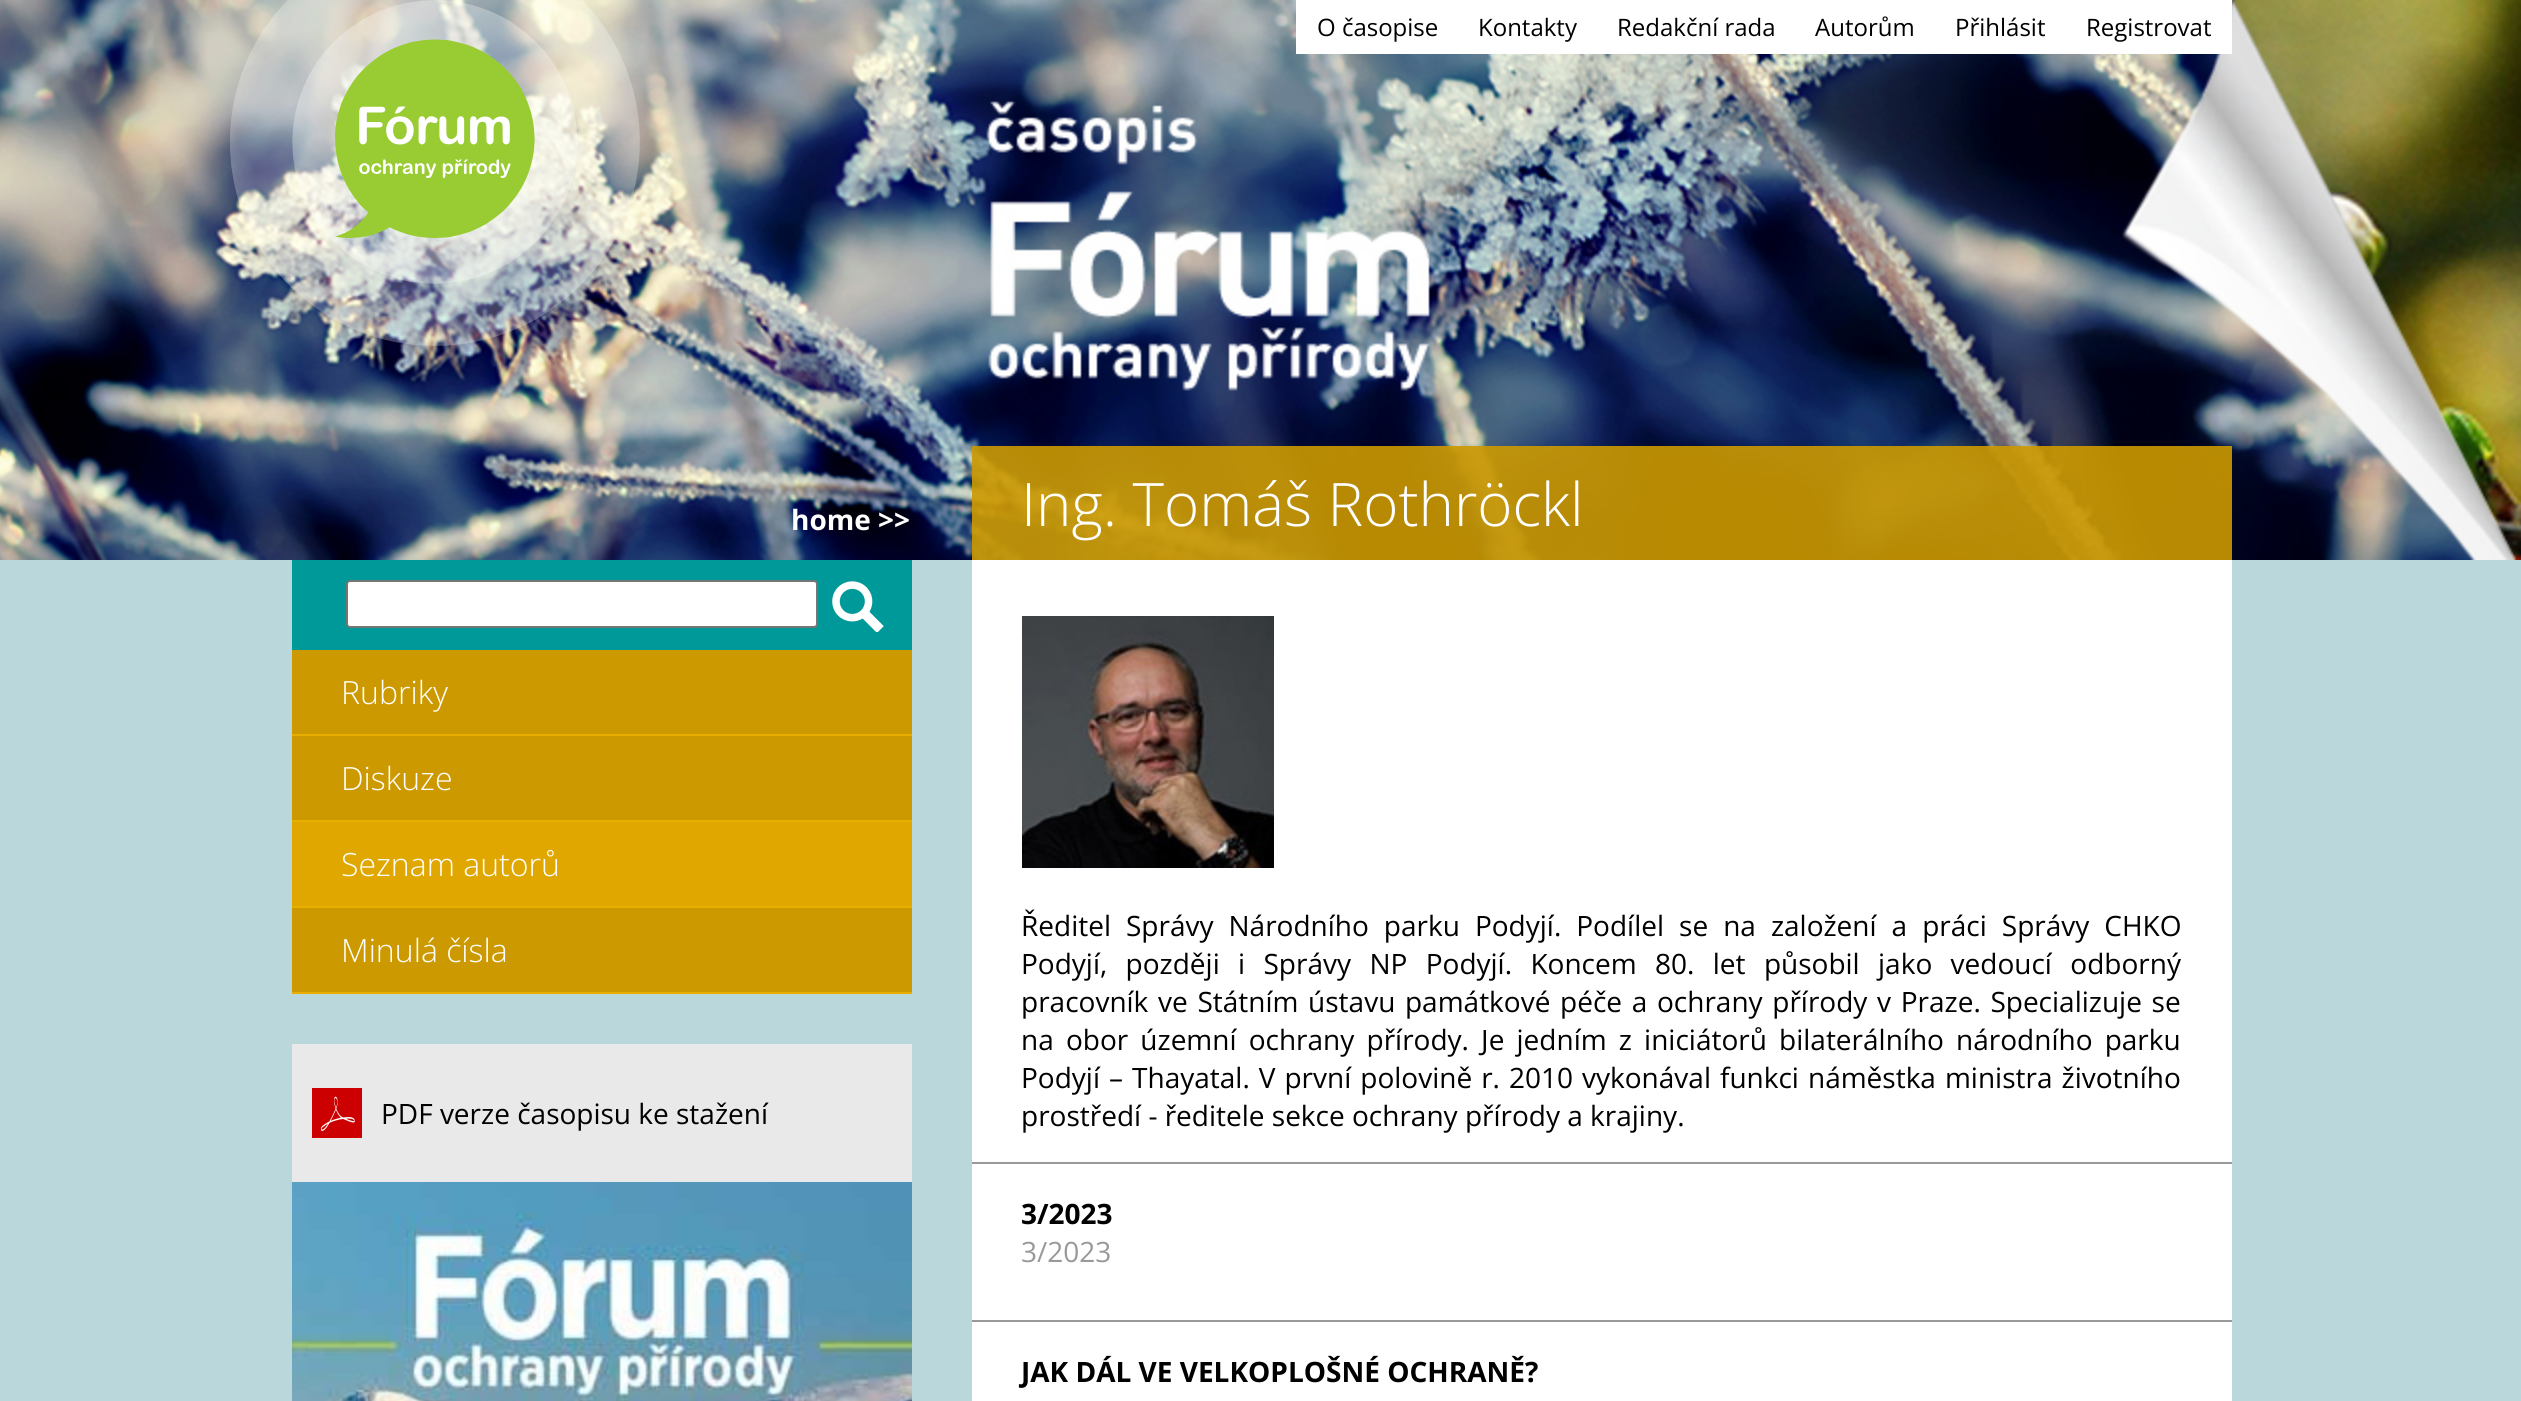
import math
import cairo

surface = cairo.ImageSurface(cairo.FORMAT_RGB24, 2521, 1401)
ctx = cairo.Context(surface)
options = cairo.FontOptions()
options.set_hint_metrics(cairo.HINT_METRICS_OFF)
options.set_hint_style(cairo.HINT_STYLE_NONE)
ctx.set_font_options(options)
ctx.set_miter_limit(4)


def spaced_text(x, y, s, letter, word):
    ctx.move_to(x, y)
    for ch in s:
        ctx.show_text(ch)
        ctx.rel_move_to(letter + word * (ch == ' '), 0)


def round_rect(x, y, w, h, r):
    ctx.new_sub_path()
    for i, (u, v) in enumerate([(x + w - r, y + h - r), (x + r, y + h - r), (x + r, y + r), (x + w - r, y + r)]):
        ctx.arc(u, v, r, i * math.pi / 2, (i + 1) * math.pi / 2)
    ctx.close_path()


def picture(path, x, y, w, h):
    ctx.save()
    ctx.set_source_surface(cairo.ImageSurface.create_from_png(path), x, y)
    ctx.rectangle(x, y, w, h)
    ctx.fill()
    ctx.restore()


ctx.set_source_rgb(0.729, 0.843, 0.863)
ctx.paint()
picture("img1.png", 0, 0, 2521, 560)
picture("img2.png", 230, 0, 410, 346)
ctx.set_source_rgb(1, 1, 1)
ctx.rectangle(1296, 0, 936, 54)
ctx.fill()
ctx.select_font_face("Open Sans")
ctx.set_font_size(24)
ctx.set_source_rgb(0, 0, 0)
ctx.move_to(1317, 36)
ctx.show_text("O časopise")
ctx.move_to(1478, 36)
ctx.show_text("Kontakty")
ctx.move_to(1617, 36)
ctx.show_text("Redakční rada")
ctx.move_to(1815, 36)
ctx.show_text("Autorům")
ctx.move_to(1955, 36)
ctx.show_text("Přihlásit")
ctx.move_to(2086, 36)
ctx.show_text("Registrovat")
ctx.select_font_face("Open Sans", cairo.FONT_SLANT_NORMAL, cairo.FONT_WEIGHT_BOLD)
ctx.set_font_size(28)
ctx.set_source_rgb(1, 1, 1)
ctx.move_to(791, 530)
ctx.show_text("home >>")
ctx.set_source_rgb(0, 0.6, 0.6)
ctx.rectangle(292, 560, 620, 90)
ctx.fill()
ctx.set_source_rgb(1, 1, 1)
round_rect(347, 581, 470, 46, 3)
ctx.fill_preserve()
ctx.set_source_rgb(0.463, 0.463, 0.463)
ctx.stroke()
picture("img3.png", 832, 581, 52, 51)
ctx.set_source_rgb(0.8, 0.6, 0)
ctx.rectangle(292, 650, 620, 84)
ctx.fill()
ctx.set_source_rgb(0.914, 0.686, 0)
ctx.rectangle(292, 734, 620, 2)
ctx.fill()
ctx.select_font_face("Open Sans Light")
ctx.set_font_size(32)
ctx.set_source_rgb(1, 1, 1)
ctx.move_to(341, 704)
ctx.show_text("Rubriky")
ctx.set_source_rgb(0.8, 0.6, 0)
ctx.rectangle(292, 736, 620, 84)
ctx.fill()
ctx.set_source_rgb(0.914, 0.686, 0)
ctx.rectangle(292, 820, 620, 2)
ctx.fill()
ctx.set_source_rgb(1, 1, 1)
ctx.move_to(341, 790)
ctx.show_text("Diskuze")
ctx.set_source_rgb(0.875, 0.655, 0)
ctx.rectangle(292, 822, 620, 84)
ctx.fill()
ctx.set_source_rgb(0.914, 0.686, 0)
ctx.rectangle(292, 906, 620, 2)
ctx.fill()
ctx.set_source_rgb(1, 1, 1)
ctx.move_to(341, 876)
ctx.show_text("Seznam autorů")
ctx.set_source_rgb(0.8, 0.6, 0)
ctx.rectangle(292, 908, 620, 84)
ctx.fill()
ctx.set_source_rgb(0.914, 0.686, 0)
ctx.rectangle(292, 992, 620, 2)
ctx.fill()
ctx.set_source_rgb(1, 1, 1)
ctx.move_to(341, 962)
ctx.show_text("Minulá čísla")
ctx.set_source_rgb(0.914, 0.914, 0.914)
ctx.rectangle(292, 1044, 620, 138)
ctx.fill()
picture("img4.png", 312, 1088, 50, 50)
ctx.select_font_face("Open Sans")
ctx.set_font_size(28)
ctx.set_source_rgb(0, 0, 0)
ctx.move_to(381, 1124)
ctx.show_text("PDF verze časopisu ke stažení")
picture("img5.png", 292, 1182, 620, 219)
ctx.set_source_rgb(1, 1, 1)
ctx.rectangle(972, 560, 1260, 841)
ctx.fill()
ctx.set_source_rgba(0.8, 0.6, 0, 0.9)
ctx.rectangle(972, 446, 1260, 114)
ctx.fill()
ctx.select_font_face("Open Sans Light")
ctx.set_font_size(60)
ctx.set_source_rgb(1, 1, 1)
ctx.move_to(1021, 526)
ctx.show_text("Ing. Tomáš Rothröckl")
picture("img6.png", 1022, 616, 252, 252)
ctx.select_font_face("Open Sans")
ctx.set_font_size(28)
ctx.set_source_rgb(0, 0, 0)
spaced_text(1021, 936, "Ředitel Správy Národního parku Podyjí. Podílel se na založení a práci Správy CHKO", 0, 7.75)
spaced_text(1021, 974, "Podyjí, později i Správy NP Podyjí. Koncem 80. let působil jako vedoucí odborný", 0, 11.1)
spaced_text(1021, 1012, "pracovník ve Státním ústavu památkové péče a ochrany přírody v Praze. Specializuje se", 0, 2.4)
spaced_text(1021, 1050, "na obor územní ochrany přírody. Je jedním z iniciátorů bilaterálního národního parku", 0, 4.9)
spaced_text(1021, 1088, "Podyjí – Thayatal. V první polovině r. 2010 vykonával funkci náměstka ministra životního", 0, 1.75)
ctx.move_to(1021, 1126)
ctx.show_text("prostředí - ředitele sekce ochrany přírody a krajiny.")
ctx.set_source_rgb(0.6, 0.6, 0.6)
ctx.rectangle(972, 1162, 1260, 2)
ctx.fill()
ctx.rectangle(972, 1320, 1260, 2)
ctx.fill()
ctx.select_font_face("Open Sans", cairo.FONT_SLANT_NORMAL, cairo.FONT_WEIGHT_BOLD)
ctx.set_source_rgb(0, 0, 0)
ctx.move_to(1021, 1224)
ctx.show_text("3/2023")
ctx.select_font_face("Open Sans")
ctx.set_source_rgb(0.6, 0.6, 0.6)
ctx.move_to(1021, 1262)
ctx.show_text("3/2023")
ctx.select_font_face("Open Sans", cairo.FONT_SLANT_NORMAL, cairo.FONT_WEIGHT_BOLD)
ctx.set_source_rgb(0, 0, 0)
ctx.move_to(1021, 1382)
ctx.show_text("JAK DÁL VE VELKOPLOŠNÉ OCHRANĚ?")
surface.write_to_png("page.png")
